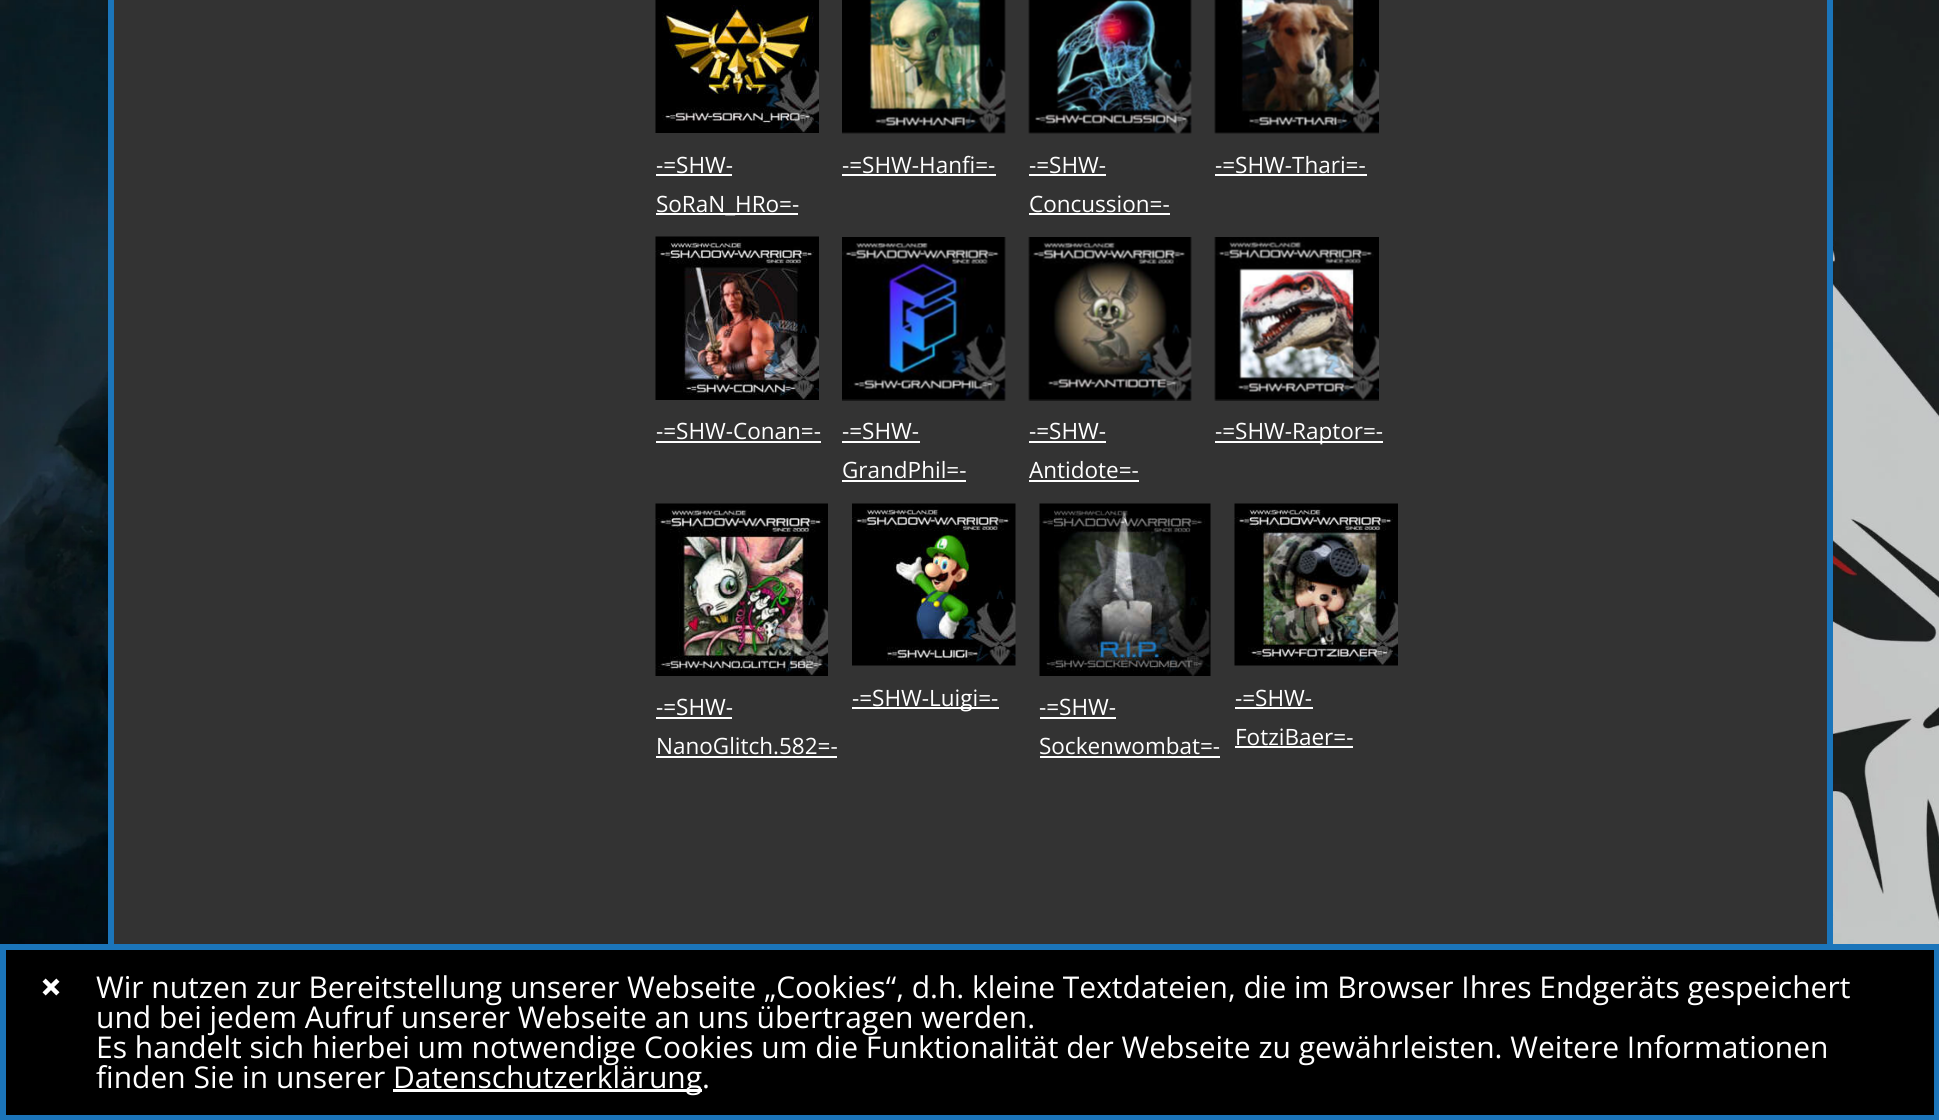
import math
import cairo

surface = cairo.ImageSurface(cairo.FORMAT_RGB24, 1939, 1120)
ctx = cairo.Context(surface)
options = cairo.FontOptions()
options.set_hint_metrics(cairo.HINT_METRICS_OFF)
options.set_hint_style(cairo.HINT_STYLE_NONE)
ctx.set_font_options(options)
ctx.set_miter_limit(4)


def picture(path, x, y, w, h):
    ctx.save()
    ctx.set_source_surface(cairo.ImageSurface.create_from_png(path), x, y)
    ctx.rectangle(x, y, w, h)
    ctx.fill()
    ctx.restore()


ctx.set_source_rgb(1, 1, 1)
ctx.paint()
picture("img1.png", 0, 0, 1939, 944)
ctx.set_source_rgb(0.2, 0.2, 0.2)
ctx.rectangle(114, 0, 1713, 944)
ctx.fill()
ctx.set_source_rgb(0.106, 0.459, 0.729)
ctx.rectangle(1827, 0, 6, 944)
ctx.fill()
ctx.rectangle(108, 0, 6, 944)
ctx.fill()
picture("img2.png", 655, 0, 164, 133)
ctx.select_font_face("Open Sans")
ctx.set_font_size(22.5)
ctx.set_source_rgb(1, 1, 1)
ctx.move_to(656, 173)
ctx.show_text("-=SHW-")
ctx.rectangle(656, 174, 76, 2)
ctx.fill()
ctx.rectangle(656, 213, 142, 2)
ctx.fill()
ctx.move_to(656, 212)
ctx.show_text("SoRaN_HRo=-")
picture("img3.png", 842, 0, 164, 134)
ctx.move_to(842, 173)
ctx.show_text("-=SHW-Hanfi=-")
ctx.rectangle(842, 174, 154, 2)
ctx.fill()
picture("img4.png", 1028, 0, 164, 134)
ctx.move_to(1029, 173)
ctx.show_text("-=SHW-")
ctx.rectangle(1029, 174, 77, 2)
ctx.fill()
ctx.move_to(1029, 212)
ctx.show_text("Concussion=-")
ctx.rectangle(1029, 213, 141, 2)
ctx.fill()
picture("img5.png", 1214, 0, 165, 134)
ctx.move_to(1215, 173)
ctx.show_text("-=SHW-Thari=-")
ctx.rectangle(1215, 174, 152, 2)
ctx.fill()
picture("img6.png", 655, 236, 164, 164)
ctx.move_to(656, 439)
ctx.show_text("-=SHW-Conan=-")
ctx.rectangle(656, 441, 165, 2)
ctx.fill()
picture("img7.png", 842, 237, 164, 164)
ctx.move_to(842, 439)
ctx.show_text("-=SHW-")
ctx.rectangle(842, 441, 78, 2)
ctx.fill()
ctx.move_to(842, 478)
ctx.show_text("GrandPhil=-")
ctx.rectangle(842, 480, 124, 2)
ctx.fill()
picture("img8.png", 1028, 237, 164, 164)
ctx.move_to(1029, 439)
ctx.show_text("-=SHW-")
ctx.rectangle(1029, 441, 77, 2)
ctx.fill()
ctx.move_to(1029, 478)
ctx.show_text("Antidote=-")
ctx.rectangle(1029, 480, 110, 2)
ctx.fill()
picture("img9.png", 1214, 237, 165, 164)
ctx.rectangle(1215, 441, 168, 2)
ctx.fill()
ctx.move_to(1215, 439)
ctx.show_text("-=SHW-Raptor=-")
picture("img10.png", 655, 503, 173, 173)
ctx.move_to(656, 715)
ctx.show_text("-=SHW-")
ctx.rectangle(656, 717, 76, 2)
ctx.fill()
ctx.move_to(656, 754)
ctx.show_text("NanoGlitch.582=-")
ctx.rectangle(656, 756, 181, 2)
ctx.fill()
picture("img11.png", 852, 503, 164, 163)
ctx.rectangle(852, 707, 147, 2)
ctx.fill()
ctx.move_to(852, 706)
ctx.show_text("-=SHW-Luigi=-")
picture("img12.png", 1039, 503, 172, 173)
ctx.move_to(1039, 715)
ctx.show_text("-=SHW-")
ctx.rectangle(1040, 717, 76, 2)
ctx.fill()
ctx.move_to(1039, 754)
ctx.show_text("Sockenwombat=-")
ctx.rectangle(1040, 756, 180, 2)
ctx.fill()
picture("img13.png", 1234, 503, 164, 163)
ctx.move_to(1235, 706)
ctx.show_text("-=SHW-")
ctx.rectangle(1235, 707, 78, 2)
ctx.fill()
ctx.move_to(1235, 745)
ctx.show_text("FotziBaer=-")
ctx.rectangle(1235, 746, 118, 2)
ctx.fill()
ctx.set_source_rgb(0, 0, 0)
ctx.rectangle(3, 947, 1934, 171)
ctx.fill_preserve()
ctx.set_source_rgb(0.106, 0.459, 0.729)
ctx.set_line_width(6)
ctx.stroke()
picture("img14.png", 42, 978, 18, 18)
ctx.set_font_size(30)
ctx.set_source_rgb(1, 1, 1)
ctx.move_to(96, 998)
ctx.show_text("Wir nutzen zur Bereitstellung unserer Webseite „Cookies“, d.h. kleine Textdateien, die im Browser Ihres Endgeräts gespeichert")
ctx.move_to(96, 1028)
ctx.show_text("und bei jedem Aufruf unserer Webseite an uns übertragen werden.")
ctx.move_to(96, 1058)
ctx.show_text("Es handelt sich hierbei um notwendige Cookies um die Funktionalität der Webseite zu gewährleisten. Weitere Informationen")
ctx.move_to(96, 1088)
ctx.show_text("finden Sie in unserer")
ctx.rectangle(393, 1089, 309, 3)
ctx.fill()
ctx.move_to(393, 1088)
ctx.show_text("Datenschutzerklärung.")
surface.write_to_png("page.png")
